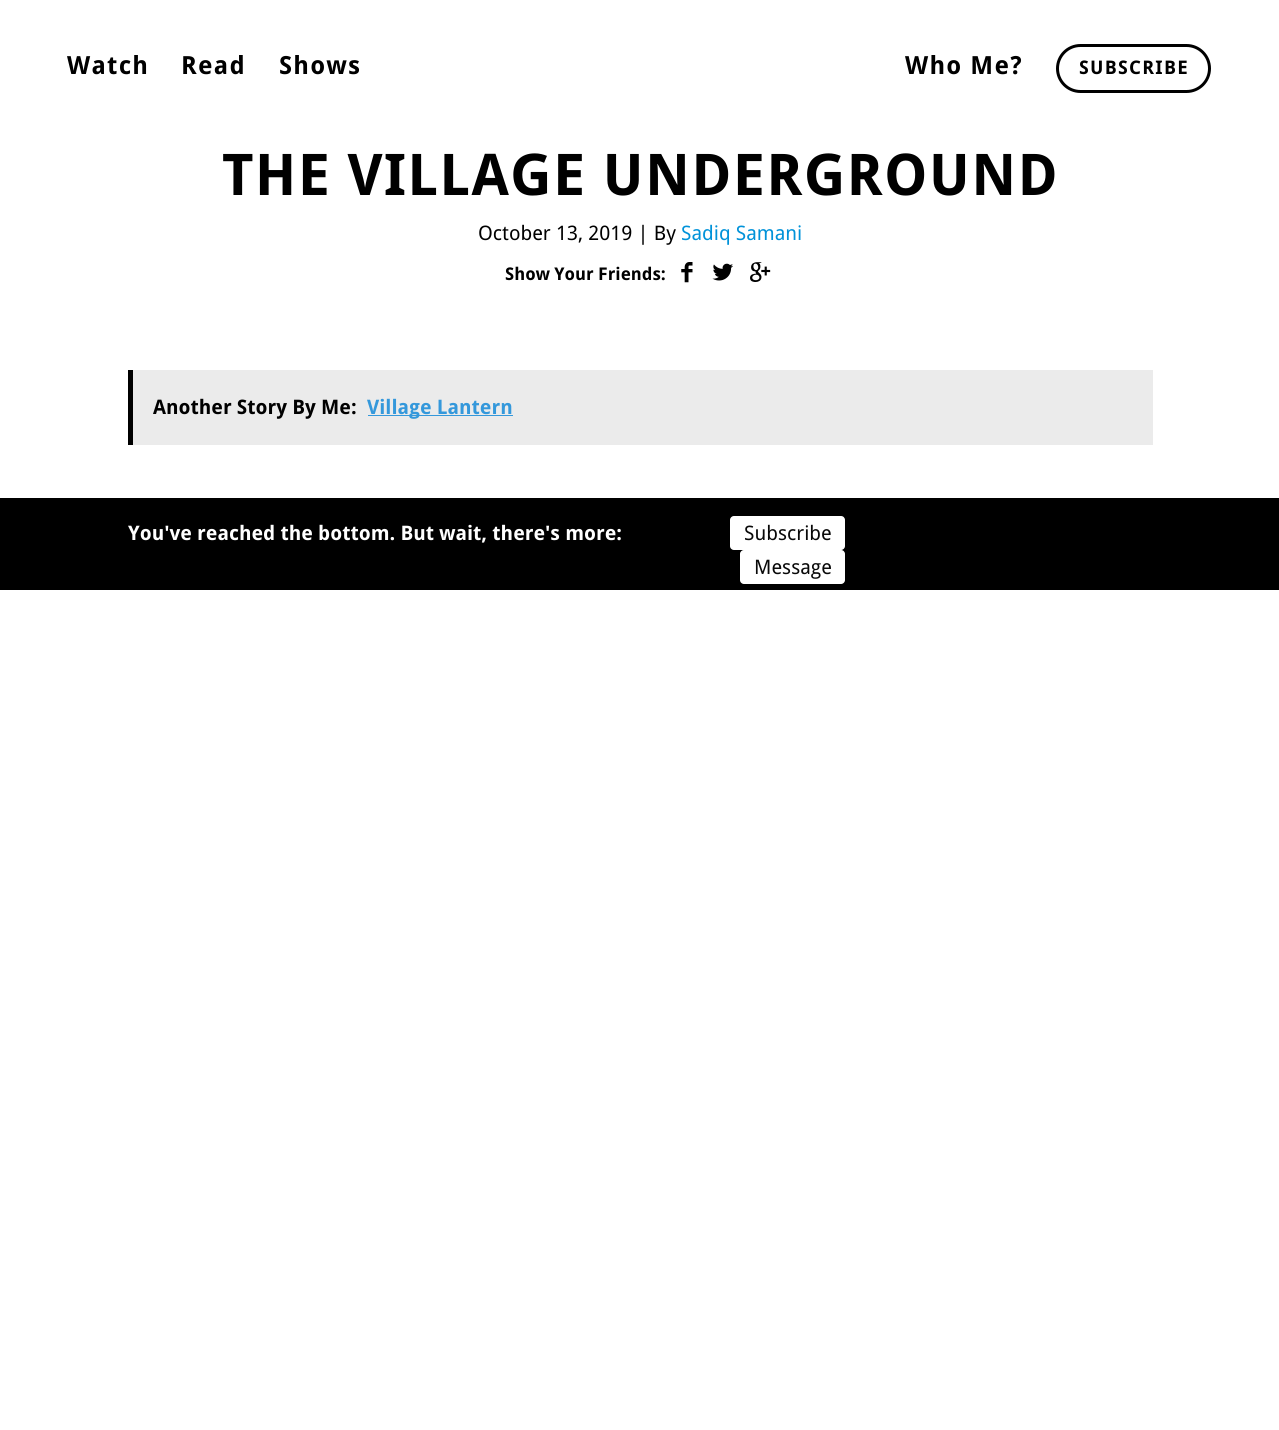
import math
import cairo

surface = cairo.ImageSurface(cairo.FORMAT_RGB24, 1279, 1430)
ctx = cairo.Context(surface)
options = cairo.FontOptions()
options.set_hint_metrics(cairo.HINT_METRICS_OFF)
options.set_hint_style(cairo.HINT_STYLE_NONE)
ctx.set_font_options(options)
ctx.set_miter_limit(4)


def spaced_text(x, y, s, letter, word):
    ctx.move_to(x, y)
    for ch in s:
        ctx.show_text(ch)
        ctx.rel_move_to(letter + word * (ch == ' '), 0)


def round_rect(x, y, w, h, r):
    ctx.new_sub_path()
    for i, (u, v) in enumerate([(x + w - r, y + h - r), (x + r, y + h - r), (x + r, y + r), (x + w - r, y + r)]):
        ctx.arc(u, v, r, i * math.pi / 2, (i + 1) * math.pi / 2)
    ctx.close_path()


def picture(path, x, y, w, h):
    ctx.save()
    ctx.set_source_surface(cairo.ImageSurface.create_from_png(path), x, y)
    ctx.rectangle(x, y, w, h)
    ctx.fill()
    ctx.restore()


ctx.set_source_rgb(1, 1, 1)
ctx.paint()
ctx.select_font_face("Droid Sans", cairo.FONT_SLANT_NORMAL, cairo.FONT_WEIGHT_BOLD)
ctx.set_font_size(25)
ctx.set_source_rgb(0, 0, 0)
spaced_text(67, 74, "Watch", 1.25, 0)
spaced_text(181, 74, "Read", 1.25, 0)
spaced_text(279, 74, "Shows", 1.25, 0)
spaced_text(905, 74, "Who Me?", 1.25, 0)
round_rect(1057.5, 45.5, 152, 46, 23)
ctx.set_line_width(3)
ctx.stroke()
ctx.set_font_size(18.75)
spaced_text(1079, 74, "SUBSCRIBE", 1.25, 0)
ctx.set_font_size(57.5)
spaced_text(222, 195, "THE VILLAGE UNDERGROUND", 1.25, 0)
ctx.select_font_face("Droid Sans")
ctx.set_font_size(20)
ctx.move_to(478, 240)
ctx.show_text("October 13, 2019 | By")
ctx.set_source_rgb(0, 0.573, 0.851)
ctx.move_to(681, 240)
ctx.show_text("Sadiq Samani")
ctx.select_font_face("Droid Sans", cairo.FONT_SLANT_NORMAL, cairo.FONT_WEIGHT_BOLD)
ctx.set_font_size(17.5)
ctx.set_source_rgb(0, 0, 0)
ctx.move_to(505, 280)
ctx.show_text("Show Your Friends:")
picture("img1.png", 681, 262, 12, 21)
picture("img2.png", 712, 263, 21, 18)
picture("img3.png", 750, 262, 21, 20)
ctx.set_source_rgb(0.918, 0.918, 0.918)
ctx.rectangle(133, 370, 1020, 75)
ctx.fill()
ctx.set_source_rgb(0, 0, 0)
ctx.rectangle(128, 370, 5, 75)
ctx.fill()
ctx.set_font_size(20)
ctx.move_to(153, 414)
ctx.show_text("Another Story By Me:")
ctx.set_source_rgb(0.204, 0.596, 0.859)
ctx.rectangle(368, 415, 145, 1)
ctx.fill()
ctx.move_to(367, 414)
ctx.show_text("Village Lantern")
ctx.set_source_rgb(0, 0, 0)
ctx.rectangle(0, 498, 1279, 92)
ctx.fill()
ctx.set_source_rgb(1, 1, 1)
ctx.move_to(128, 540)
ctx.show_text("You've reached the bottom. But wait, there's more:")
round_rect(730, 516, 115, 34, 4)
ctx.fill()
ctx.select_font_face("Droid Sans")
ctx.set_source_rgb(0.039, 0.039, 0.039)
ctx.move_to(744, 540)
ctx.show_text("Subscribe")
ctx.set_source_rgb(1, 1, 1)
round_rect(740, 550, 105, 34, 4)
ctx.fill()
ctx.set_source_rgb(0.039, 0.039, 0.039)
ctx.move_to(754, 574)
ctx.show_text("Message")
surface.write_to_png("page.png")
